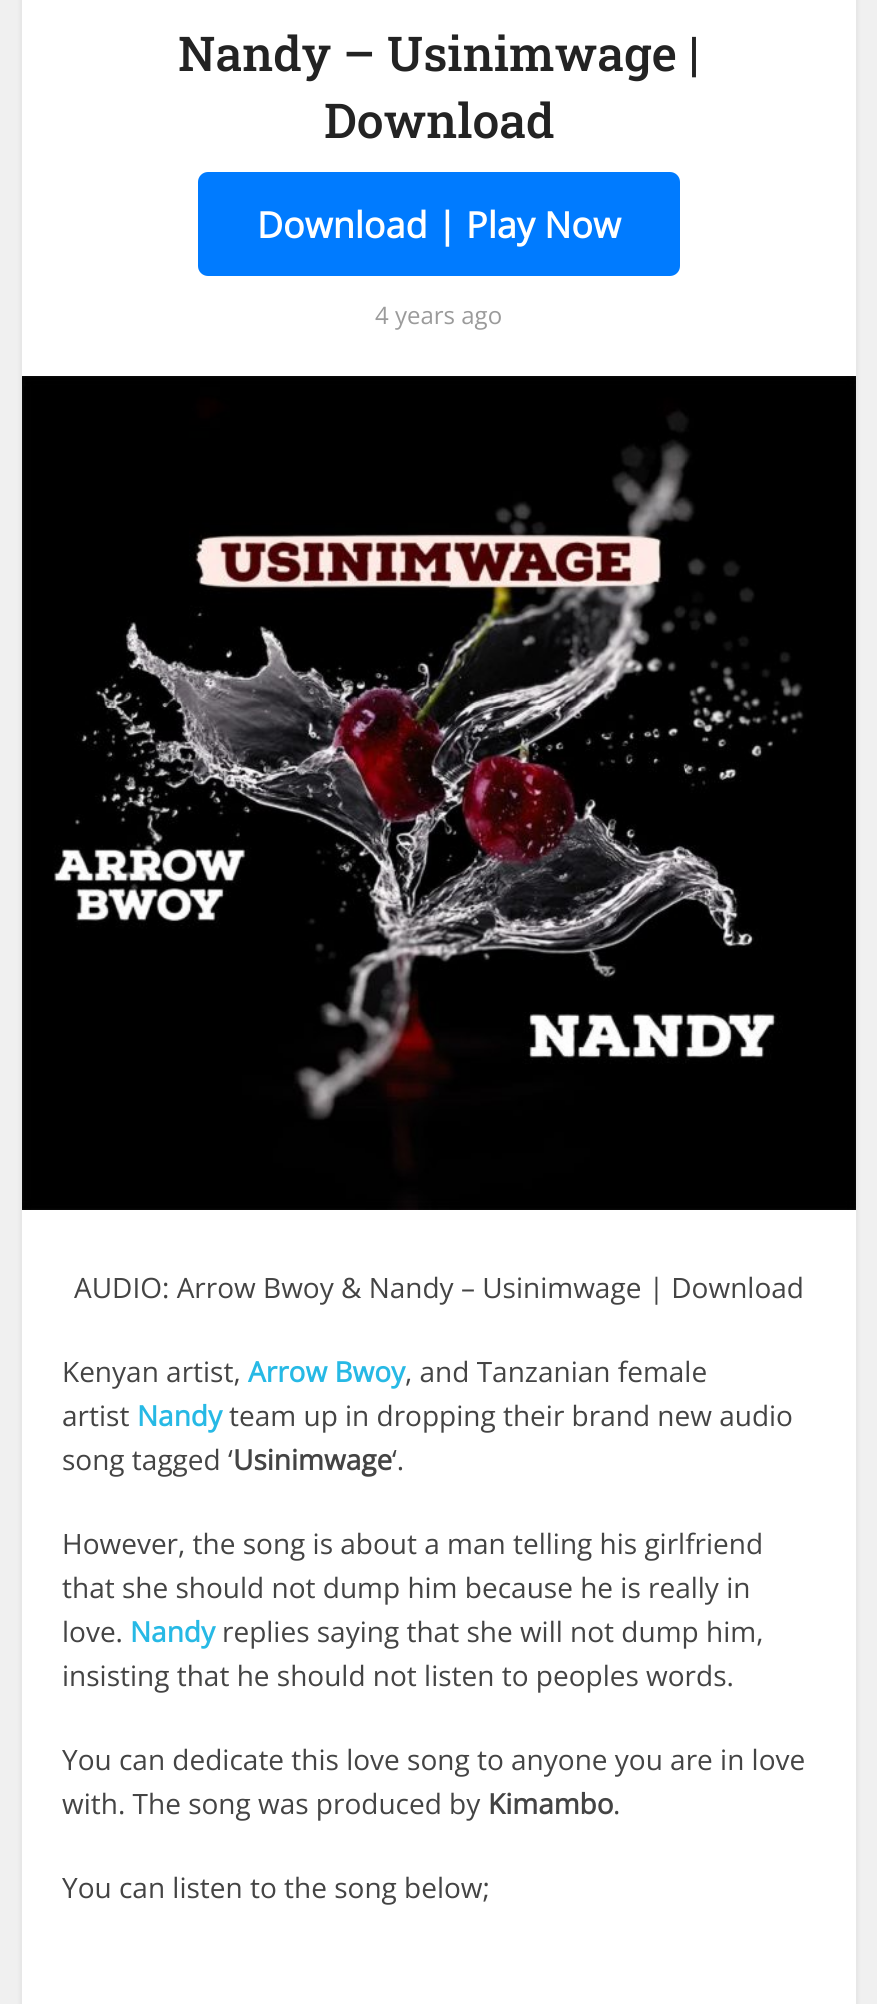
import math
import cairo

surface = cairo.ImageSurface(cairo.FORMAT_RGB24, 877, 2004)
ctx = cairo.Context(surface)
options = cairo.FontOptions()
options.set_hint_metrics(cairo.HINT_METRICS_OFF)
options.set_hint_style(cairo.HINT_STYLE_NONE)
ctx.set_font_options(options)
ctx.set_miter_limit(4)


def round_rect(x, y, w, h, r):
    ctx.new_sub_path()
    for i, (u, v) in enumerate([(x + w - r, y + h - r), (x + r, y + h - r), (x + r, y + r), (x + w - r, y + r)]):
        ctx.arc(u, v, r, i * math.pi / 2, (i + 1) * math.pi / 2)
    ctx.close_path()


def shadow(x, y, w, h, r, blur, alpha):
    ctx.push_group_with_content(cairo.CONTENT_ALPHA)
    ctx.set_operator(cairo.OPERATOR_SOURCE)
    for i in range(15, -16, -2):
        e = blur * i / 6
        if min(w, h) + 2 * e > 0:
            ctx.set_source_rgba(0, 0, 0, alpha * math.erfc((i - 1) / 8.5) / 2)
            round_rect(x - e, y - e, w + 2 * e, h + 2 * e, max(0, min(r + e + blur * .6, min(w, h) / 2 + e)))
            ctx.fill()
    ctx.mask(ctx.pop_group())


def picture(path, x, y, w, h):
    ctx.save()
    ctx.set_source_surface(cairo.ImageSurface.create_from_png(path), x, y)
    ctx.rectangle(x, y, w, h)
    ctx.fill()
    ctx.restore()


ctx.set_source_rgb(0.941, 0.941, 0.941)
ctx.paint()
ctx.set_source_rgb(0, 0, 0)
shadow(22, -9, 834, 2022, 0, 3, 0.1)
ctx.set_source_rgb(1, 1, 1)
ctx.rectangle(22, 0, 834, 2004)
ctx.fill()
ctx.select_font_face("Roboto Slab Medium")
ctx.set_font_size(48)
ctx.set_source_rgb(0.137, 0.137, 0.137)
ctx.move_to(178, 71)
ctx.show_text("Nandy – Usinimwage |")
ctx.move_to(324, 138)
ctx.show_text("Download")
ctx.set_source_rgb(0, 0.482, 1)
round_rect(198, 172, 482, 104, 10)
ctx.fill()
ctx.select_font_face("Open Sans", cairo.FONT_SLANT_NORMAL, cairo.FONT_WEIGHT_BOLD)
ctx.set_font_size(36)
ctx.set_source_rgb(1, 1, 1)
ctx.move_to(257, 238)
ctx.show_text("Download | Play Now")
ctx.select_font_face("Open Sans")
ctx.set_font_size(24)
ctx.set_source_rgb(0.608, 0.608, 0.608)
ctx.move_to(375, 324)
ctx.show_text("4 years ago")
picture("img1.png", 22, 376, 834, 834)
ctx.set_font_size(28)
ctx.set_source_rgb(0.267, 0.267, 0.267)
ctx.move_to(74, 1298)
ctx.show_text("AUDIO: Arrow Bwoy & Nandy – Usinimwage | Download")
ctx.move_to(62, 1382)
ctx.show_text("Kenyan artist,")
ctx.select_font_face("Open Sans", cairo.FONT_SLANT_NORMAL, cairo.FONT_WEIGHT_BOLD)
ctx.set_source_rgb(0.153, 0.725, 0.898)
ctx.move_to(248, 1382)
ctx.show_text("Arrow Bwoy")
ctx.select_font_face("Open Sans")
ctx.set_source_rgb(0.267, 0.267, 0.267)
ctx.move_to(405, 1382)
ctx.show_text(", and Tanzanian female")
ctx.move_to(62, 1426)
ctx.show_text("artist")
ctx.select_font_face("Open Sans", cairo.FONT_SLANT_NORMAL, cairo.FONT_WEIGHT_BOLD)
ctx.set_source_rgb(0.153, 0.725, 0.898)
ctx.move_to(137, 1426)
ctx.show_text("Nandy")
ctx.select_font_face("Open Sans")
ctx.set_source_rgb(0.267, 0.267, 0.267)
ctx.move_to(229, 1426)
ctx.show_text("team up in dropping their brand new audio")
ctx.move_to(62, 1470)
ctx.show_text("song tagged ‘")
ctx.select_font_face("Open Sans", cairo.FONT_SLANT_NORMAL, cairo.FONT_WEIGHT_BOLD)
ctx.move_to(233, 1470)
ctx.show_text("Usinimwage")
ctx.select_font_face("Open Sans")
ctx.move_to(392, 1470)
ctx.show_text("‘.")
ctx.move_to(62, 1554)
ctx.show_text("However, the song is about a man telling his girlfriend")
ctx.move_to(62, 1598)
ctx.show_text("that she should not dump him because he is really in")
ctx.move_to(62, 1642)
ctx.show_text("love.")
ctx.select_font_face("Open Sans", cairo.FONT_SLANT_NORMAL, cairo.FONT_WEIGHT_BOLD)
ctx.set_source_rgb(0.153, 0.725, 0.898)
ctx.move_to(130, 1642)
ctx.show_text("Nandy")
ctx.select_font_face("Open Sans")
ctx.set_source_rgb(0.267, 0.267, 0.267)
ctx.move_to(222, 1642)
ctx.show_text("replies saying that she will not dump him,")
ctx.move_to(62, 1686)
ctx.show_text("insisting that he should not listen to peoples words.")
ctx.move_to(62, 1770)
ctx.show_text("You can dedicate this love song to anyone you are in love")
ctx.move_to(62, 1814)
ctx.show_text("with. The song was produced by")
ctx.select_font_face("Open Sans", cairo.FONT_SLANT_NORMAL, cairo.FONT_WEIGHT_BOLD)
ctx.move_to(488, 1814)
ctx.show_text("Kimambo")
ctx.select_font_face("Open Sans")
ctx.move_to(613, 1814)
ctx.show_text(".")
ctx.move_to(62, 1898)
ctx.show_text("You can listen to the song below;")
surface.write_to_png("page.png")
